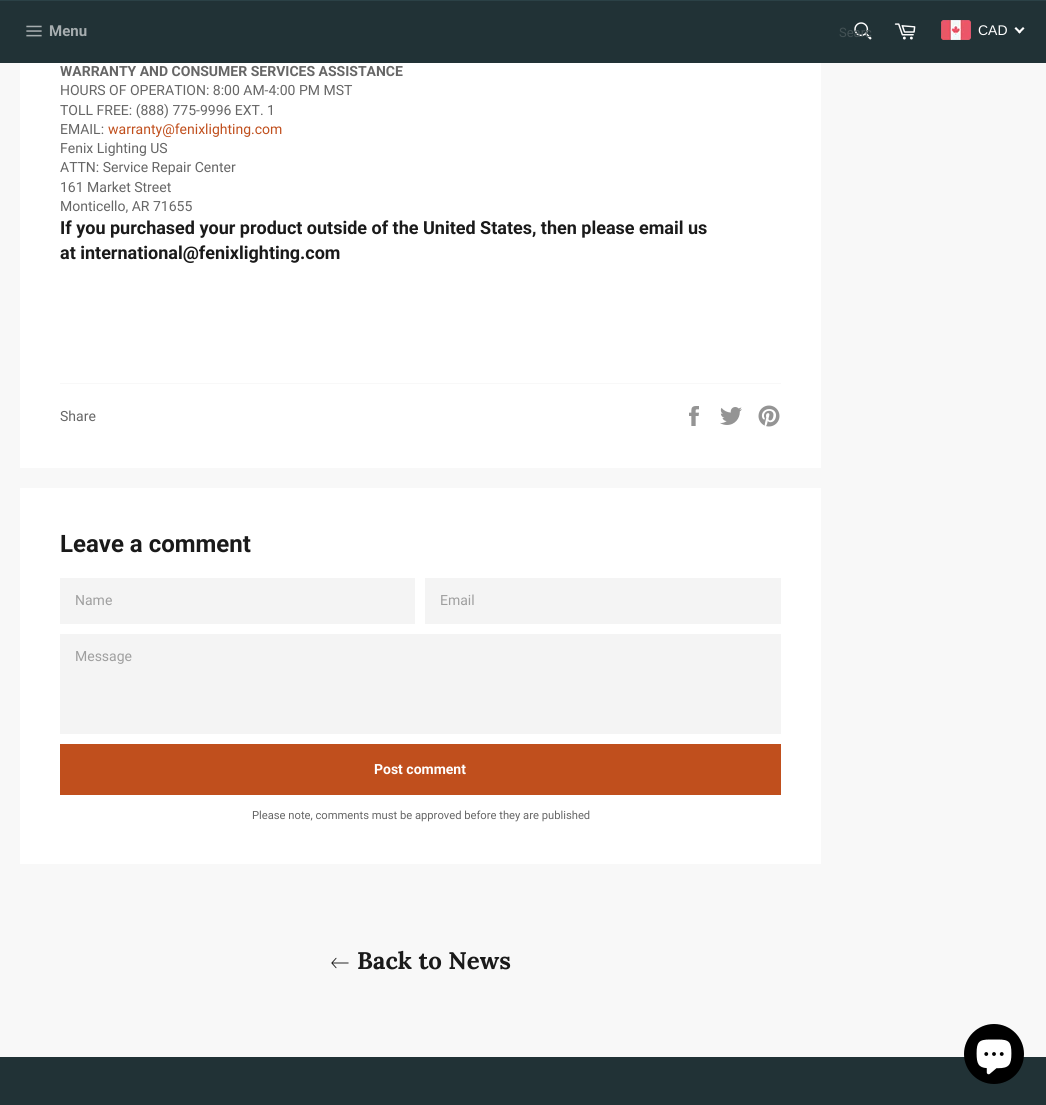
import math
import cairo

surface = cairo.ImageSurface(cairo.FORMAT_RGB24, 1046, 1105)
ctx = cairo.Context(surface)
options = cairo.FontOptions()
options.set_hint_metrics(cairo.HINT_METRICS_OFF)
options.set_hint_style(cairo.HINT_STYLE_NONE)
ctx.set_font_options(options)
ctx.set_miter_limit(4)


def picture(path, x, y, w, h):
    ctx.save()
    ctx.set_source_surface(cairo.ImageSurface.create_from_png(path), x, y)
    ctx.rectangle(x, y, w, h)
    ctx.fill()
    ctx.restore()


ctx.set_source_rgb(0.969, 0.969, 0.969)
ctx.paint()
ctx.set_source_rgb(0.129, 0.196, 0.212)
ctx.rectangle(0, 1, 1046, 62)
ctx.fill()
ctx.set_source_rgb(0.169, 0.255, 0.275)
ctx.rectangle(0, 0, 1046, 1)
ctx.fill()
picture("img1.png", 26, 25, 16, 12)
ctx.select_font_face("Roboto", cairo.FONT_SLANT_NORMAL, cairo.FONT_WEIGHT_BOLD)
ctx.set_font_size(15)
ctx.set_source_rgb(0.651, 0.678, 0.686)
ctx.move_to(49, 36)
ctx.show_text("Menu")
picture("img2.png", 854, 22, 18, 18)
ctx.select_font_face("Roboto")
ctx.set_font_size(13)
ctx.set_source_rgb(0.263, 0.318, 0.329)
ctx.move_to(839, 37)
ctx.show_text("Searc")
picture("img3.png", 894, 23, 22, 17)
picture("img4.png", 941, 20, 30, 20)
ctx.select_font_face("Liberation Sans")
ctx.set_font_size(14)
ctx.set_source_rgb(1, 1, 1)
ctx.move_to(978, 35)
ctx.show_text("CAD")
ctx.new_path()
ctx.move_to(1023, 27)
ctx.line_to(1024.5, 28.5)
ctx.line_to(1019.5, 33.5)
ctx.line_to(1018, 32)
ctx.close_path()
ctx.fill()
ctx.new_path()
ctx.move_to(1016, 27)
ctx.line_to(1021, 32)
ctx.line_to(1019.5, 33.5)
ctx.line_to(1014.5, 28.5)
ctx.close_path()
ctx.fill()
ctx.rectangle(20, 63, 801, 405)
ctx.fill()
ctx.select_font_face("Roboto", cairo.FONT_SLANT_NORMAL, cairo.FONT_WEIGHT_BOLD)
ctx.set_source_rgb(0.4, 0.4, 0.4)
ctx.move_to(60, 76)
ctx.show_text("WARRANTY AND CONSUMER SERVICES ASSISTANCE")
ctx.select_font_face("Roboto")
ctx.move_to(60, 95)
ctx.show_text("HOURS OF OPERATION: 8:00 AM-4:00 PM MST")
ctx.move_to(60, 115)
ctx.show_text("TOLL FREE: (888) 775-9996 EXT. 1")
ctx.move_to(60, 134)
ctx.show_text("EMAIL:")
ctx.set_source_rgb(0.753, 0.31, 0.114)
ctx.move_to(108, 134)
ctx.show_text("warranty@fenixlighting.com")
ctx.set_source_rgb(0.4, 0.4, 0.4)
ctx.move_to(60, 153)
ctx.show_text("Fenix Lighting US")
ctx.move_to(60, 172)
ctx.show_text("ATTN: Service Repair Center")
ctx.move_to(60, 192)
ctx.show_text("161 Market Street")
ctx.move_to(60, 211)
ctx.show_text("Monticello, AR 71655")
ctx.select_font_face("Roboto", cairo.FONT_SLANT_NORMAL, cairo.FONT_WEIGHT_BOLD)
ctx.set_font_size(18)
ctx.set_source_rgb(0.102, 0.102, 0.102)
ctx.move_to(60, 234)
ctx.show_text("If you purchased your product outside of the United States, then please email us")
ctx.move_to(60, 259)
ctx.show_text("at international@fenixlighting.com")
ctx.set_source_rgb(0.969, 0.969, 0.969)
ctx.rectangle(60, 383, 721, 1)
ctx.fill()
ctx.select_font_face("Roboto")
ctx.set_font_size(14)
ctx.set_source_rgb(0.4, 0.4, 0.4)
ctx.move_to(60, 421)
ctx.show_text("Share")
picture("img5.png", 689, 406, 10, 20)
picture("img6.png", 720, 407, 22, 18)
picture("img7.png", 758, 405, 22, 22)
ctx.set_source_rgb(1, 1, 1)
ctx.rectangle(20, 488, 801, 376)
ctx.fill()
ctx.select_font_face("Roboto", cairo.FONT_SLANT_NORMAL, cairo.FONT_WEIGHT_BOLD)
ctx.set_font_size(24)
ctx.set_source_rgb(0.102, 0.102, 0.102)
ctx.move_to(60, 552)
ctx.show_text("Leave a comment")
ctx.set_source_rgb(0.957, 0.957, 0.957)
ctx.rectangle(60, 578, 355, 46)
ctx.fill()
ctx.select_font_face("Roboto")
ctx.set_font_size(14)
ctx.set_source_rgb(0.624, 0.624, 0.624)
ctx.move_to(75, 605)
ctx.show_text("Name")
ctx.set_source_rgb(0.957, 0.957, 0.957)
ctx.rectangle(425, 578, 356, 46)
ctx.fill()
ctx.set_source_rgb(0.624, 0.624, 0.624)
ctx.move_to(440, 605)
ctx.show_text("Email")
ctx.set_source_rgb(0.957, 0.957, 0.957)
ctx.rectangle(60, 634, 721, 100)
ctx.fill()
ctx.set_source_rgb(0.624, 0.624, 0.624)
ctx.move_to(75, 661)
ctx.show_text("Message")
ctx.set_source_rgb(0.753, 0.31, 0.114)
ctx.rectangle(60, 744, 721, 51)
ctx.fill()
ctx.select_font_face("Roboto", cairo.FONT_SLANT_NORMAL, cairo.FONT_WEIGHT_BOLD)
ctx.set_source_rgb(1, 1, 1)
ctx.move_to(374, 774)
ctx.show_text("Post comment")
ctx.select_font_face("Roboto")
ctx.set_font_size(11.2)
ctx.set_source_rgb(0.4, 0.4, 0.4)
ctx.move_to(252, 819)
ctx.show_text("Please note, comments must be approved before they are published")
picture("img8.png", 331, 957, 18, 12)
ctx.select_font_face("Lora", cairo.FONT_SLANT_NORMAL, cairo.FONT_WEIGHT_BOLD)
ctx.set_font_size(24)
ctx.set_source_rgb(0.102, 0.102, 0.102)
ctx.move_to(357, 969)
ctx.show_text("Back to News")
ctx.set_source_rgb(0.129, 0.196, 0.212)
ctx.rectangle(0, 1057, 1046, 48)
ctx.fill()
ctx.set_source_rgb(0, 0, 0)
ctx.arc(994, 1054, 30, 0, 2 * math.pi)
ctx.fill()
picture("img9.png", 976, 1039, 36, 36)
surface.write_to_png("page.png")
